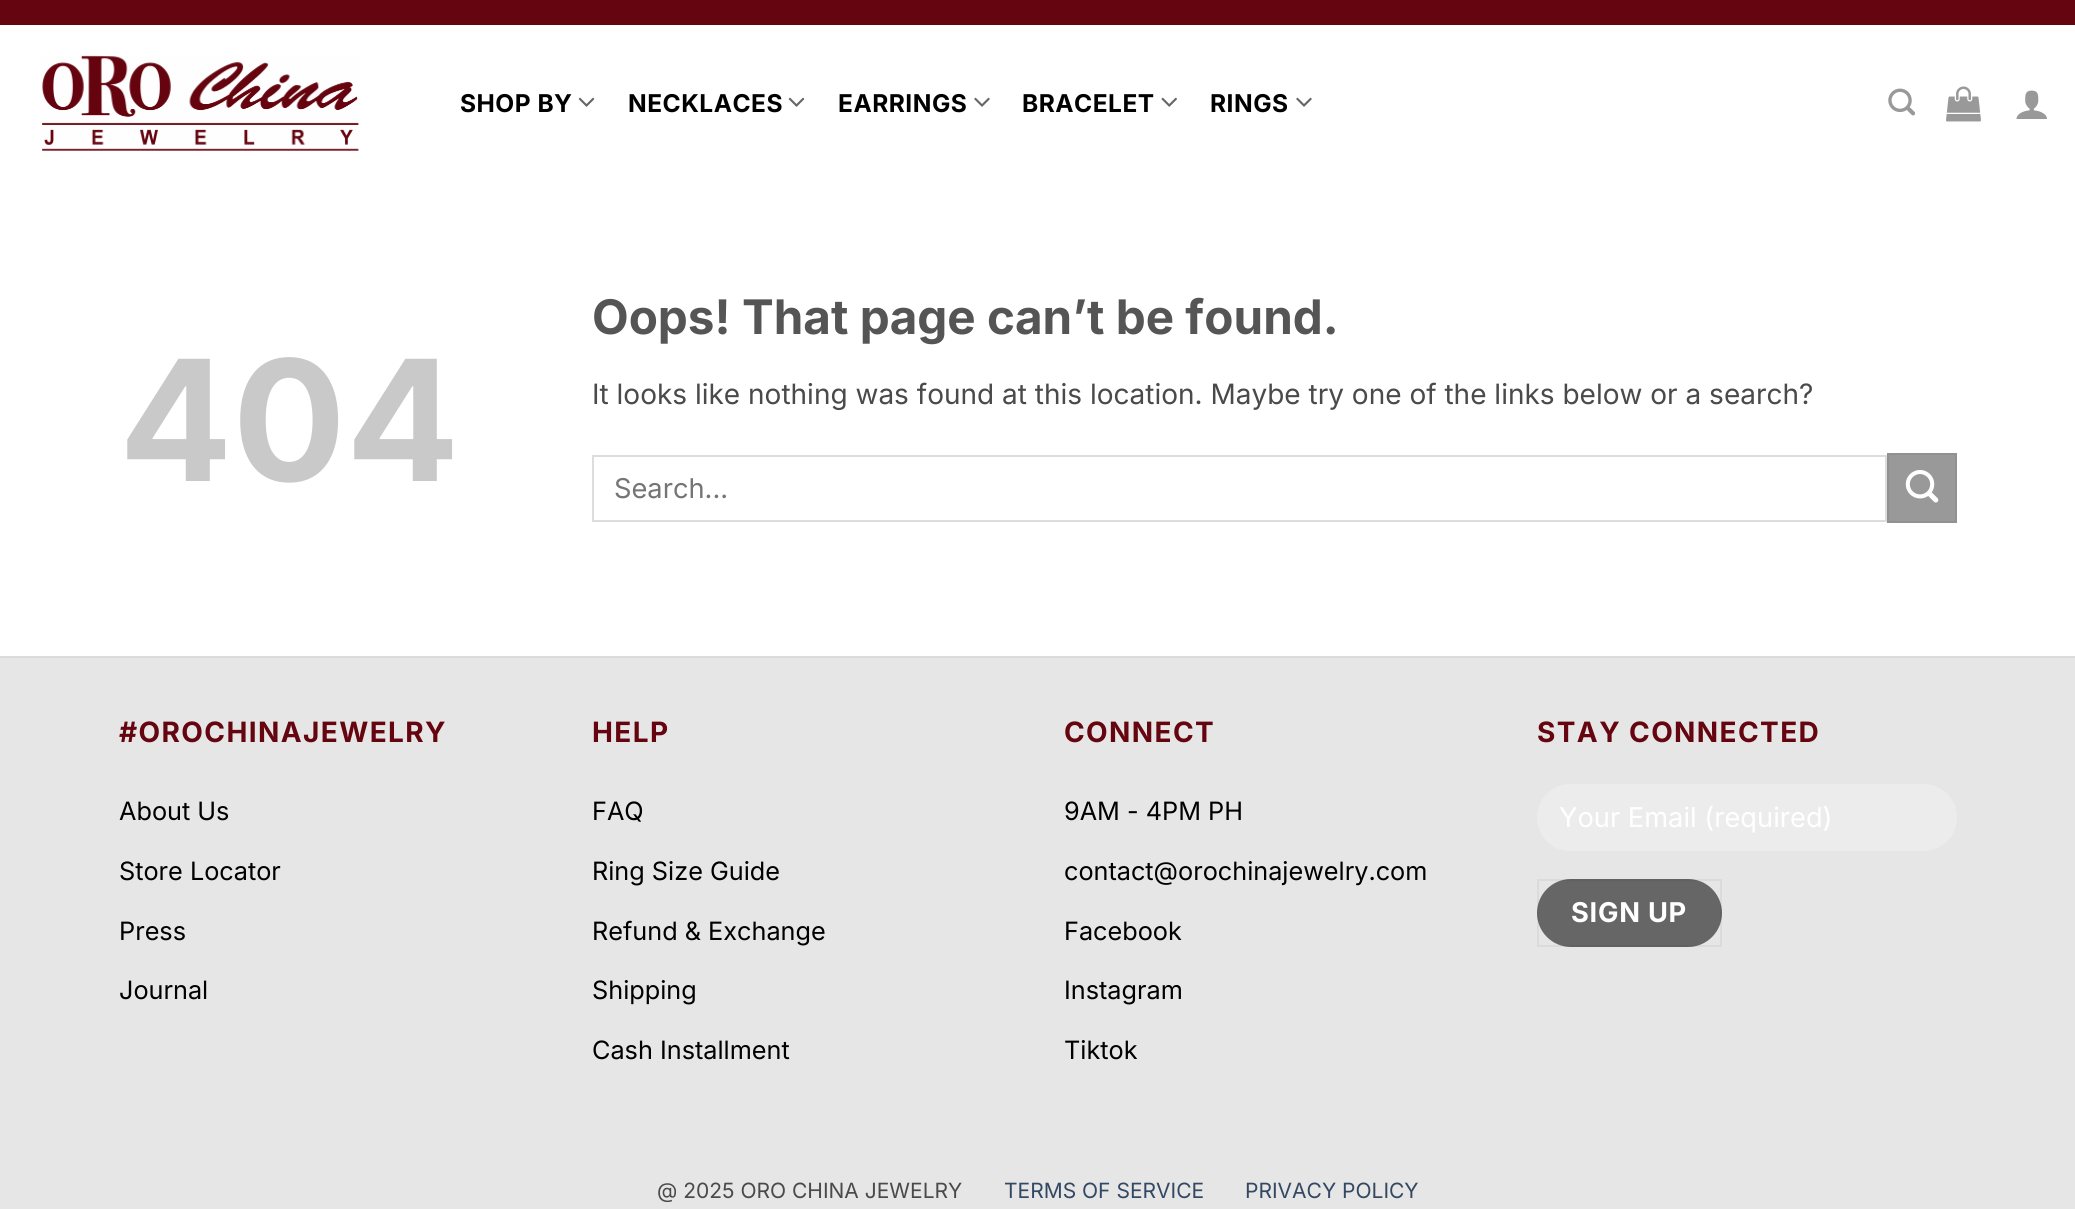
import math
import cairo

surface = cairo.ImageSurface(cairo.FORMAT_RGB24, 2075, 1209)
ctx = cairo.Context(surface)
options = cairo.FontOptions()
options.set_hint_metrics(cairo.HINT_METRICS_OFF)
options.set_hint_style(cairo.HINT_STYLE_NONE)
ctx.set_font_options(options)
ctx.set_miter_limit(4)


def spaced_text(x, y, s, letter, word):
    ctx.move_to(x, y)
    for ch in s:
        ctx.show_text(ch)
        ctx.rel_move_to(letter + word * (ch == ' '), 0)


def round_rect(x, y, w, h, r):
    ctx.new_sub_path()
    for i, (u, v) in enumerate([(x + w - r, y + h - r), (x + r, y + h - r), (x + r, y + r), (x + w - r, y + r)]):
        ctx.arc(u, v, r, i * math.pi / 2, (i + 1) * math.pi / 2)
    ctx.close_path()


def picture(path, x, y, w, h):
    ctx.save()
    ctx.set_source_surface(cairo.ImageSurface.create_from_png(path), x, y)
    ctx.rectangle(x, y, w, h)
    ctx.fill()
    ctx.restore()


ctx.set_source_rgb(1, 1, 1)
ctx.paint()
ctx.set_source_rgb(0.396, 0.02, 0.059)
ctx.rectangle(0, 0, 2075, 25)
ctx.fill()
picture("img1.png", 41, 55, 318, 96)
ctx.select_font_face("Inter", cairo.FONT_SLANT_NORMAL, cairo.FONT_WEIGHT_BOLD)
ctx.set_font_size(24.5)
ctx.set_source_rgb(0, 0, 0)
spaced_text(460, 112, "SHOP BY", 0.5, 0)
picture("img2.png", 578, 97, 17, 10)
spaced_text(628, 112, "NECKLACES", 0.5, 0)
picture("img2.png", 788, 97, 17, 10)
spaced_text(838, 112, "EARRINGS", 0.5, 0)
picture("img3.png", 974, 97, 16, 10)
spaced_text(1022, 112, "BRACELET", 0.5, 0)
picture("img4.png", 1161, 97, 16, 10)
spaced_text(1210, 112, "RINGS", 0.5, 0)
picture("img3.png", 1296, 97, 16, 10)
picture("img5.png", 1888, 88, 28, 28)
picture("img6.png", 1946, 86, 35, 36)
picture("img7.png", 2016, 90, 31, 29)
ctx.set_font_size(168)
ctx.set_source_rgb(0.788, 0.788, 0.788)
ctx.move_to(119, 481)
ctx.show_text("404")
ctx.set_font_size(47.6)
ctx.set_source_rgb(0.333, 0.333, 0.333)
ctx.move_to(592, 334)
ctx.show_text("Oops! That page can’t be found.")
ctx.select_font_face("Inter")
ctx.set_font_size(28)
ctx.set_source_rgb(0.29, 0.29, 0.29)
ctx.move_to(592, 404)
ctx.show_text("It looks like nothing was found at this location. Maybe try one of the links below or a search?")
ctx.rectangle(593, 456, 1293, 65)
ctx.set_source_rgb(0.867, 0.867, 0.867)
ctx.stroke()
ctx.set_font_size(27.25)
ctx.set_source_rgb(0.459, 0.459, 0.459)
ctx.move_to(614, 498)
ctx.show_text("Search...")
ctx.set_source_rgb(0.6, 0.6, 0.6)
ctx.rectangle(1888, 454, 68, 68)
ctx.fill_preserve()
ctx.set_source_rgb(0.569, 0.569, 0.569)
ctx.stroke()
picture("img8.png", 1905, 470, 34, 33)
ctx.set_source_rgb(0.902, 0.902, 0.902)
ctx.rectangle(0, 658, 2075, 551)
ctx.fill()
ctx.set_source_rgb(0.859, 0.859, 0.859)
ctx.rectangle(0, 656, 2075, 2)
ctx.fill()
ctx.select_font_face("Inter", cairo.FONT_SLANT_NORMAL, cairo.FONT_WEIGHT_BOLD)
ctx.set_font_size(28)
ctx.set_source_rgb(0.396, 0.02, 0.059)
spaced_text(119, 742, "#OROCHINAJEWELRY", 1.4, 0)
ctx.select_font_face("Inter")
ctx.set_font_size(25.25)
ctx.set_source_rgb(0, 0, 0)
ctx.move_to(119, 820)
ctx.show_text("About Us")
ctx.move_to(119, 880)
ctx.show_text("Store Locator")
ctx.move_to(119, 940)
ctx.show_text("Press")
ctx.move_to(119, 999)
ctx.show_text("Journal")
ctx.select_font_face("Inter", cairo.FONT_SLANT_NORMAL, cairo.FONT_WEIGHT_BOLD)
ctx.set_font_size(28)
ctx.set_source_rgb(0.396, 0.02, 0.059)
spaced_text(592, 742, "HELP", 1.4, 0)
ctx.select_font_face("Inter")
ctx.set_font_size(25.25)
ctx.set_source_rgb(0, 0, 0)
ctx.move_to(592, 820)
ctx.show_text("FAQ")
ctx.move_to(592, 880)
ctx.show_text("Ring Size Guide")
ctx.move_to(592, 940)
ctx.show_text("Refund & Exchange")
ctx.move_to(592, 999)
ctx.show_text("Shipping")
ctx.move_to(592, 1059)
ctx.show_text("Cash Installment")
ctx.select_font_face("Inter", cairo.FONT_SLANT_NORMAL, cairo.FONT_WEIGHT_BOLD)
ctx.set_font_size(28)
ctx.set_source_rgb(0.396, 0.02, 0.059)
spaced_text(1064, 742, "CONNECT", 1.4, 0)
ctx.select_font_face("Inter")
ctx.set_font_size(25.25)
ctx.set_source_rgb(0, 0, 0)
ctx.move_to(1064, 820)
ctx.show_text("9AM - 4PM PH")
ctx.move_to(1064, 880)
ctx.show_text("contact@orochinajewelry.com")
ctx.move_to(1064, 940)
ctx.show_text("Facebook")
ctx.move_to(1064, 999)
ctx.show_text("Instagram")
ctx.move_to(1064, 1059)
ctx.show_text("Tiktok")
ctx.select_font_face("Inter", cairo.FONT_SLANT_NORMAL, cairo.FONT_WEIGHT_BOLD)
ctx.set_font_size(28)
ctx.set_source_rgb(0.396, 0.02, 0.059)
spaced_text(1537, 742, "STAY CONNECTED", 1.4, 0)
ctx.set_source_rgb(0.922, 0.922, 0.922)
round_rect(1537, 784, 420, 67, 33.5)
ctx.fill()
ctx.select_font_face("Inter")
ctx.set_font_size(27.25)
ctx.set_source_rgb(1, 1, 1)
ctx.move_to(1559, 827)
ctx.show_text("Your Email (required)")
ctx.set_source_rgb(0.4, 0.4, 0.4)
round_rect(1537, 879, 185, 68, 34)
ctx.fill()
ctx.rectangle(1538, 880, 183, 66)
ctx.set_source_rgba(0, 0, 0, 0.05)
ctx.stroke()
ctx.select_font_face("Inter", cairo.FONT_SLANT_NORMAL, cairo.FONT_WEIGHT_BOLD)
ctx.set_source_rgb(1, 1, 1)
spaced_text(1571, 922, "SIGN UP", 0.75, 0)
ctx.select_font_face("Inter")
ctx.set_font_size(21)
ctx.set_source_rgb(0.29, 0.29, 0.29)
ctx.move_to(657, 1198)
ctx.show_text("@ 2025 ORO CHINA JEWELRY")
ctx.set_source_rgb(0.2, 0.282, 0.384)
ctx.move_to(1004, 1198)
ctx.show_text("TERMS OF SERVICE")
ctx.move_to(1245, 1198)
ctx.show_text("PRIVACY POLICY")
surface.write_to_png("page.png")
